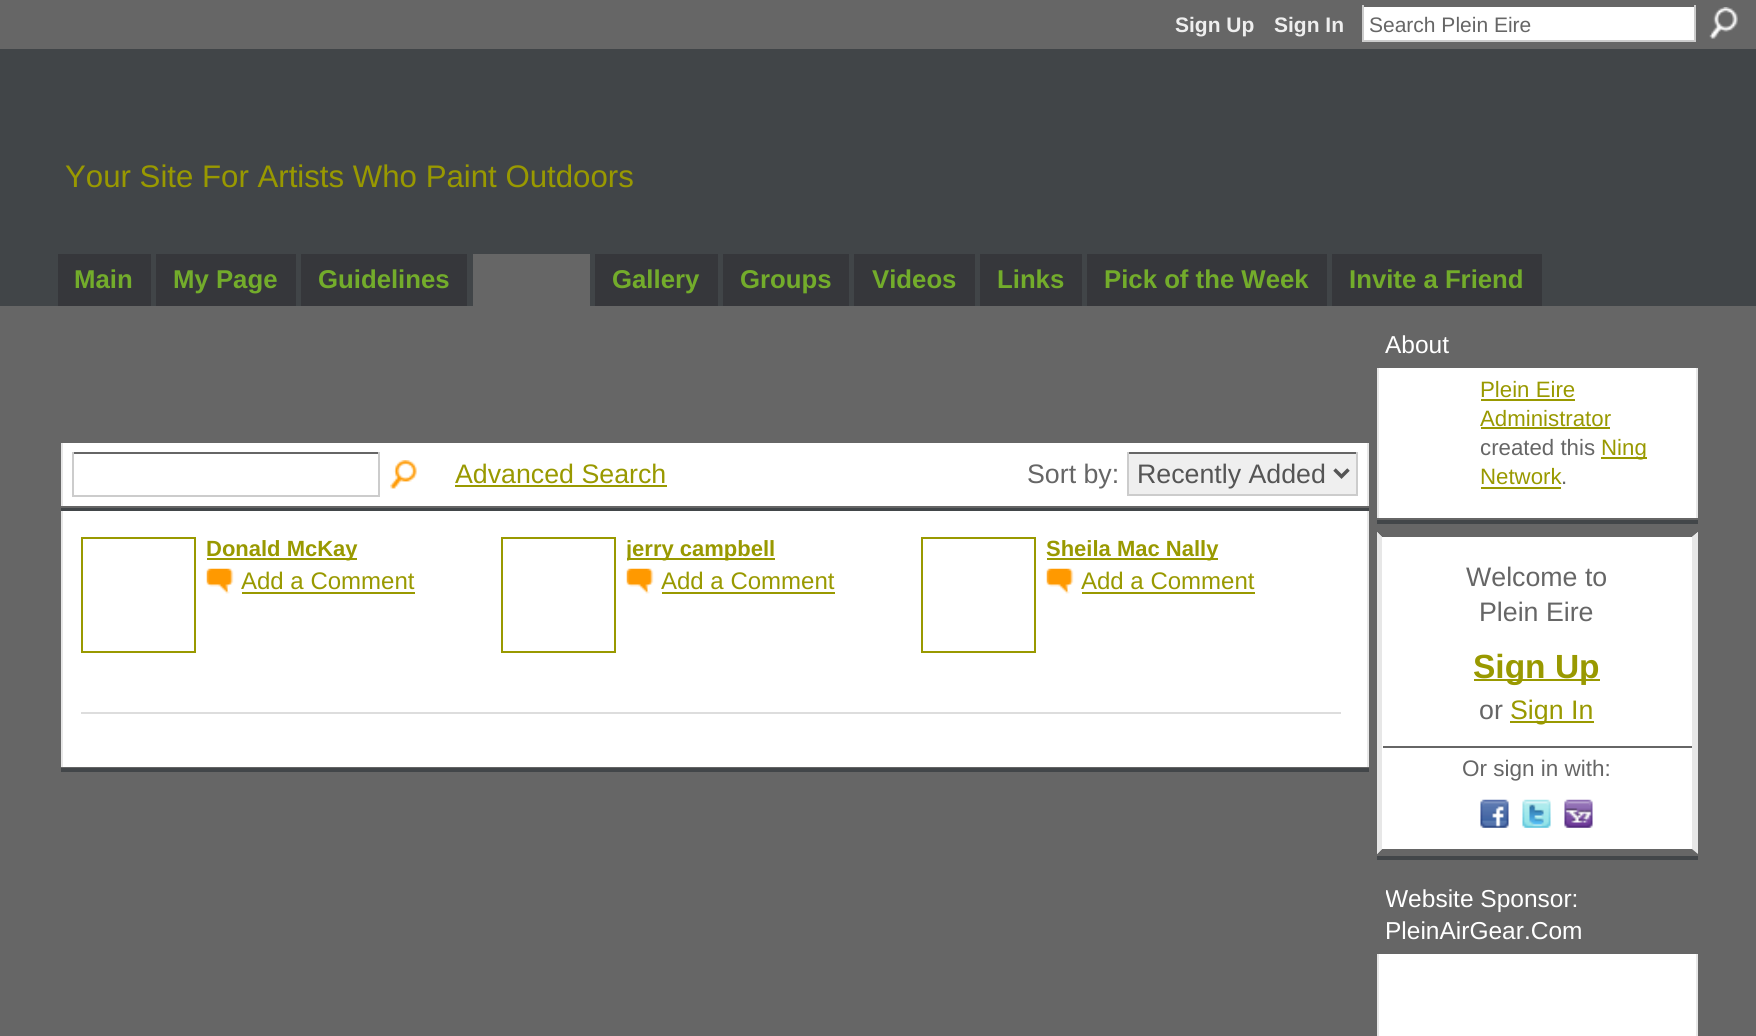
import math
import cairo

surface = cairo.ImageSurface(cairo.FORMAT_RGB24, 1756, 1036)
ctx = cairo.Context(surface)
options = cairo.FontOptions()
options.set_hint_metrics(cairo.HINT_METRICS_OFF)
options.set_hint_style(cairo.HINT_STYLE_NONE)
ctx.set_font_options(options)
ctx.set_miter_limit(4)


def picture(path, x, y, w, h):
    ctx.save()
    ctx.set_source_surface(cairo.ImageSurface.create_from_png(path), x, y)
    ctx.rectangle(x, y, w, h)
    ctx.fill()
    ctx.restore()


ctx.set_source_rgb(0.4, 0.4, 0.4)
ctx.paint()
ctx.select_font_face("Liberation Sans", cairo.FONT_SLANT_NORMAL, cairo.FONT_WEIGHT_BOLD)
ctx.set_font_size(21)
ctx.set_source_rgb(0.933, 0.933, 0.933)
ctx.move_to(1175, 32)
ctx.show_text("Sign Up")
ctx.move_to(1274, 32)
ctx.show_text("Sign In")
ctx.set_source_rgb(1, 1, 1)
ctx.rectangle(1364, 7, 330, 33)
ctx.fill()
ctx.set_source_rgb(0.8, 0.8, 0.8)
ctx.rectangle(1694, 5, 2, 37)
ctx.fill()
ctx.rectangle(1362, 40, 334, 2)
ctx.fill()
ctx.rectangle(1362, 5, 2, 37)
ctx.fill()
ctx.select_font_face("Liberation Sans")
ctx.set_source_rgb(0.4, 0.4, 0.4)
ctx.move_to(1369, 32)
ctx.show_text("Search Plein Eire")
picture("img1.png", 1709, 7, 29, 32)
ctx.set_source_rgb(0.255, 0.271, 0.282)
ctx.rectangle(0, 49, 1756, 257)
ctx.fill()
ctx.set_font_size(31.2)
ctx.set_source_rgb(0.6, 0.6, 0)
ctx.move_to(65, 187)
ctx.show_text("Your Site For Artists Who Paint Outdoors")
ctx.set_source_rgb(0.212, 0.216, 0.231)
ctx.rectangle(58, 254, 93, 52)
ctx.fill()
ctx.select_font_face("Liberation Sans", cairo.FONT_SLANT_NORMAL, cairo.FONT_WEIGHT_BOLD)
ctx.set_font_size(25.75)
ctx.set_source_rgb(0.451, 0.675, 0.169)
ctx.move_to(74, 288)
ctx.show_text("Main")
ctx.set_source_rgb(0.212, 0.216, 0.231)
ctx.rectangle(156, 254, 140, 52)
ctx.fill()
ctx.set_source_rgb(0.451, 0.675, 0.169)
ctx.move_to(173, 288)
ctx.show_text("My Page")
ctx.set_source_rgb(0.212, 0.216, 0.231)
ctx.rectangle(301, 254, 166, 52)
ctx.fill()
ctx.set_source_rgb(0.451, 0.675, 0.169)
ctx.move_to(318, 288)
ctx.show_text("Guidelines")
ctx.set_source_rgb(0.4, 0.4, 0.4)
ctx.rectangle(473, 254, 117, 52)
ctx.fill()
ctx.set_source_rgb(0.212, 0.216, 0.231)
ctx.rectangle(595, 254, 123, 52)
ctx.fill()
ctx.set_source_rgb(0.451, 0.675, 0.169)
ctx.move_to(612, 288)
ctx.show_text("Gallery")
ctx.set_source_rgb(0.212, 0.216, 0.231)
ctx.rectangle(723, 254, 126, 52)
ctx.fill()
ctx.set_source_rgb(0.451, 0.675, 0.169)
ctx.move_to(740, 288)
ctx.show_text("Groups")
ctx.set_source_rgb(0.212, 0.216, 0.231)
ctx.rectangle(854, 254, 121, 52)
ctx.fill()
ctx.set_source_rgb(0.451, 0.675, 0.169)
ctx.move_to(872, 288)
ctx.show_text("Videos")
ctx.set_source_rgb(0.212, 0.216, 0.231)
ctx.rectangle(980, 254, 102, 52)
ctx.fill()
ctx.set_source_rgb(0.451, 0.675, 0.169)
ctx.move_to(997, 288)
ctx.show_text("Links")
ctx.set_source_rgb(0.212, 0.216, 0.231)
ctx.rectangle(1087, 254, 240, 52)
ctx.fill()
ctx.set_source_rgb(0.451, 0.675, 0.169)
ctx.move_to(1104, 288)
ctx.show_text("Pick of the Week")
ctx.set_source_rgb(0.212, 0.216, 0.231)
ctx.rectangle(1332, 254, 210, 52)
ctx.fill()
ctx.set_source_rgb(0.451, 0.675, 0.169)
ctx.move_to(1349, 288)
ctx.show_text("Invite a Friend")
ctx.set_source_rgb(0.259, 0.275, 0.286)
ctx.rectangle(61, 768, 1308, 4)
ctx.fill()
ctx.rectangle(61, 508, 1308, 3)
ctx.fill()
ctx.set_source_rgb(1, 1, 1)
ctx.rectangle(63, 443, 1304, 63)
ctx.fill()
ctx.set_source_rgb(0.906, 0.906, 0.906)
ctx.rectangle(1367, 443, 2, 63)
ctx.fill()
ctx.rectangle(61, 443, 2, 63)
ctx.fill()
ctx.set_source_rgb(0.4, 0.4, 0.4)
ctx.rectangle(72, 452, 308, 2)
ctx.fill()
ctx.set_source_rgb(0.8, 0.8, 0.8)
ctx.rectangle(378, 452, 2, 45)
ctx.fill()
ctx.rectangle(72, 495, 308, 2)
ctx.fill()
ctx.rectangle(72, 452, 2, 45)
ctx.fill()
picture("img2.png", 390, 460, 27, 29)
ctx.select_font_face("Liberation Sans")
ctx.set_font_size(26.75)
ctx.set_source_rgb(0.6, 0.6, 0)
ctx.move_to(455, 483)
ctx.show_text("Advanced Search")
ctx.rectangle(455, 485, 212, 2)
ctx.fill()
ctx.set_source_rgb(0.4, 0.4, 0.4)
ctx.move_to(1027, 483)
ctx.show_text("Sort by:")
ctx.set_source_rgb(0.937, 0.937, 0.937)
ctx.rectangle(1129, 454, 227, 40)
ctx.fill()
ctx.set_source_rgb(0.4, 0.4, 0.4)
ctx.rectangle(1127, 452, 231, 2)
ctx.fill()
ctx.set_source_rgb(0.8, 0.8, 0.8)
ctx.rectangle(1356, 452, 2, 43)
ctx.fill()
ctx.rectangle(1127, 494, 231, 2)
ctx.fill()
ctx.rectangle(1127, 452, 2, 43)
ctx.fill()
ctx.new_path()
ctx.move_to(1334.5, 469.5)
ctx.line_to(1341.5, 476.5)
ctx.line_to(1348.5, 469.5)
ctx.set_source_rgb(0.333, 0.333, 0.333)
ctx.set_line_width(3.5)
ctx.stroke()
ctx.move_to(1137, 483)
ctx.show_text("Recently Added")
ctx.set_source_rgb(1, 1, 1)
ctx.rectangle(63, 511, 1304, 256)
ctx.fill()
ctx.set_source_rgb(0.906, 0.906, 0.906)
ctx.rectangle(1367, 511, 2, 256)
ctx.fill()
ctx.rectangle(61, 511, 2, 256)
ctx.fill()
ctx.set_source_rgb(0.867, 0.867, 0.867)
ctx.rectangle(81, 712, 1260, 2)
ctx.fill()
ctx.rectangle(82, 538, 113, 114)
ctx.set_source_rgb(0.6, 0.6, 0)
ctx.set_line_width(2)
ctx.stroke()
ctx.rectangle(207, 558, 150, 2)
ctx.fill()
ctx.select_font_face("Liberation Sans", cairo.FONT_SLANT_NORMAL, cairo.FONT_WEIGHT_BOLD)
ctx.set_font_size(22)
ctx.move_to(206, 556)
ctx.show_text("Donald McKay")
picture("img3.png", 206, 568, 28, 26)
ctx.select_font_face("Liberation Sans")
ctx.set_font_size(24)
ctx.move_to(241, 589)
ctx.show_text("Add a Comment")
ctx.rectangle(242, 592, 173, 2)
ctx.fill()
ctx.rectangle(502, 538, 113, 114)
ctx.stroke()
ctx.rectangle(627, 558, 148, 2)
ctx.fill()
ctx.save()
ctx.rectangle(627, 537, 285, 27)
ctx.clip()
ctx.select_font_face("Liberation Sans", cairo.FONT_SLANT_NORMAL, cairo.FONT_WEIGHT_BOLD)
ctx.set_font_size(22)
ctx.move_to(626, 556)
ctx.show_text("jerry campbell")
ctx.restore()
picture("img4.png", 626, 568, 28, 26)
ctx.move_to(661, 589)
ctx.show_text("Add a Comment")
ctx.rectangle(662, 592, 173, 2)
ctx.fill()
ctx.rectangle(922, 538, 113, 114)
ctx.stroke()
ctx.rectangle(1047, 558, 171, 2)
ctx.fill()
ctx.select_font_face("Liberation Sans", cairo.FONT_SLANT_NORMAL, cairo.FONT_WEIGHT_BOLD)
ctx.set_font_size(22)
ctx.move_to(1046, 556)
ctx.show_text("Sheila Mac Nally")
picture("img4.png", 1046, 568, 28, 26)
ctx.select_font_face("Liberation Sans")
ctx.set_font_size(24)
ctx.move_to(1081, 589)
ctx.show_text("Add a Comment")
ctx.rectangle(1082, 592, 173, 2)
ctx.fill()
ctx.set_source_rgb(0.259, 0.275, 0.286)
ctx.rectangle(1377, 520, 321, 4)
ctx.fill()
ctx.set_font_size(24.5)
ctx.set_source_rgb(1, 1, 1)
ctx.move_to(1385, 353)
ctx.show_text("About")
ctx.rectangle(1379, 368, 317, 150)
ctx.fill()
ctx.set_source_rgb(0.906, 0.906, 0.906)
ctx.rectangle(1696, 368, 2, 150)
ctx.fill()
ctx.rectangle(1377, 368, 2, 150)
ctx.fill()
ctx.set_font_size(22.25)
ctx.set_source_rgb(0.6, 0.6, 0)
ctx.move_to(1480, 397)
ctx.show_text("Plein Eire")
ctx.rectangle(1481, 399, 94, 2)
ctx.fill()
ctx.move_to(1480, 426)
ctx.show_text("Administrator")
ctx.rectangle(1481, 427, 129, 2)
ctx.fill()
ctx.set_source_rgb(0.4, 0.4, 0.4)
ctx.move_to(1480, 455)
ctx.show_text("created this")
ctx.set_source_rgb(0.6, 0.6, 0)
ctx.rectangle(1601, 457, 46, 2)
ctx.fill()
ctx.move_to(1601, 455)
ctx.show_text("Ning")
ctx.move_to(1480, 484)
ctx.show_text("Network")
ctx.rectangle(1481, 487, 80, 2)
ctx.fill()
ctx.set_source_rgb(0.4, 0.4, 0.4)
ctx.move_to(1561, 484)
ctx.show_text(".")
ctx.set_source_rgb(0.259, 0.275, 0.286)
ctx.rectangle(1377, 856, 321, 4)
ctx.fill()
ctx.set_source_rgb(1, 1, 1)
ctx.rectangle(1377, 532, 321, 322)
ctx.fill()
ctx.set_source_rgb(0.4, 0.4, 0.4)
ctx.new_path()
ctx.move_to(1377, 532)
ctx.line_to(1698, 532)
ctx.line_to(1692, 537)
ctx.line_to(1382, 537)
ctx.close_path()
ctx.fill()
ctx.set_source_rgb(0.906, 0.906, 0.906)
ctx.new_path()
ctx.move_to(1698, 532)
ctx.line_to(1698, 854)
ctx.line_to(1692, 849)
ctx.line_to(1692, 537)
ctx.close_path()
ctx.fill()
ctx.set_source_rgb(0.4, 0.4, 0.4)
ctx.new_path()
ctx.move_to(1698, 854)
ctx.line_to(1377, 854)
ctx.line_to(1382, 849)
ctx.line_to(1692, 849)
ctx.close_path()
ctx.fill()
ctx.set_source_rgb(0.906, 0.906, 0.906)
ctx.new_path()
ctx.move_to(1377, 854)
ctx.line_to(1377, 532)
ctx.line_to(1382, 537)
ctx.line_to(1382, 849)
ctx.close_path()
ctx.fill()
ctx.set_font_size(26.75)
ctx.set_source_rgb(0.4, 0.4, 0.4)
ctx.move_to(1466, 586)
ctx.show_text("Welcome to")
ctx.move_to(1479, 621)
ctx.show_text("Plein Eire")
ctx.set_source_rgb(0.6, 0.6, 0)
ctx.rectangle(1474, 679, 126, 2)
ctx.fill()
ctx.select_font_face("Liberation Sans", cairo.FONT_SLANT_NORMAL, cairo.FONT_WEIGHT_BOLD)
ctx.set_font_size(33.5)
ctx.move_to(1473, 678)
ctx.show_text("Sign Up")
ctx.select_font_face("Liberation Sans")
ctx.set_font_size(26.75)
ctx.set_source_rgb(0.4, 0.4, 0.4)
ctx.move_to(1479, 719)
ctx.show_text("or")
ctx.set_source_rgb(0.6, 0.6, 0)
ctx.rectangle(1510, 721, 84, 2)
ctx.fill()
ctx.move_to(1510, 719)
ctx.show_text("Sign In")
ctx.set_source_rgb(0.4, 0.4, 0.4)
ctx.rectangle(1383, 746, 309, 2)
ctx.fill()
ctx.set_font_size(22.5)
ctx.move_to(1462, 776)
ctx.show_text("Or sign in with:")
picture("img5.png", 1480, 799, 29, 29)
picture("img6.png", 1522, 799, 29, 29)
picture("img7.png", 1564, 799, 29, 29)
ctx.save()
ctx.rectangle(1386, 882, 303, 65)
ctx.clip()
ctx.set_font_size(24.5)
ctx.set_source_rgb(1, 1, 1)
ctx.move_to(1385, 907)
ctx.show_text("Website Sponsor:")
ctx.restore()
ctx.set_font_size(24.5)
ctx.set_source_rgb(1, 1, 1)
ctx.move_to(1385, 939)
ctx.show_text("PleinAirGear.Com")
ctx.rectangle(1379, 954, 317, 82)
ctx.fill()
ctx.set_source_rgb(0.906, 0.906, 0.906)
ctx.rectangle(1696, 954, 2, 82)
ctx.fill()
ctx.rectangle(1377, 954, 2, 82)
ctx.fill()
surface.write_to_png("page.png")
